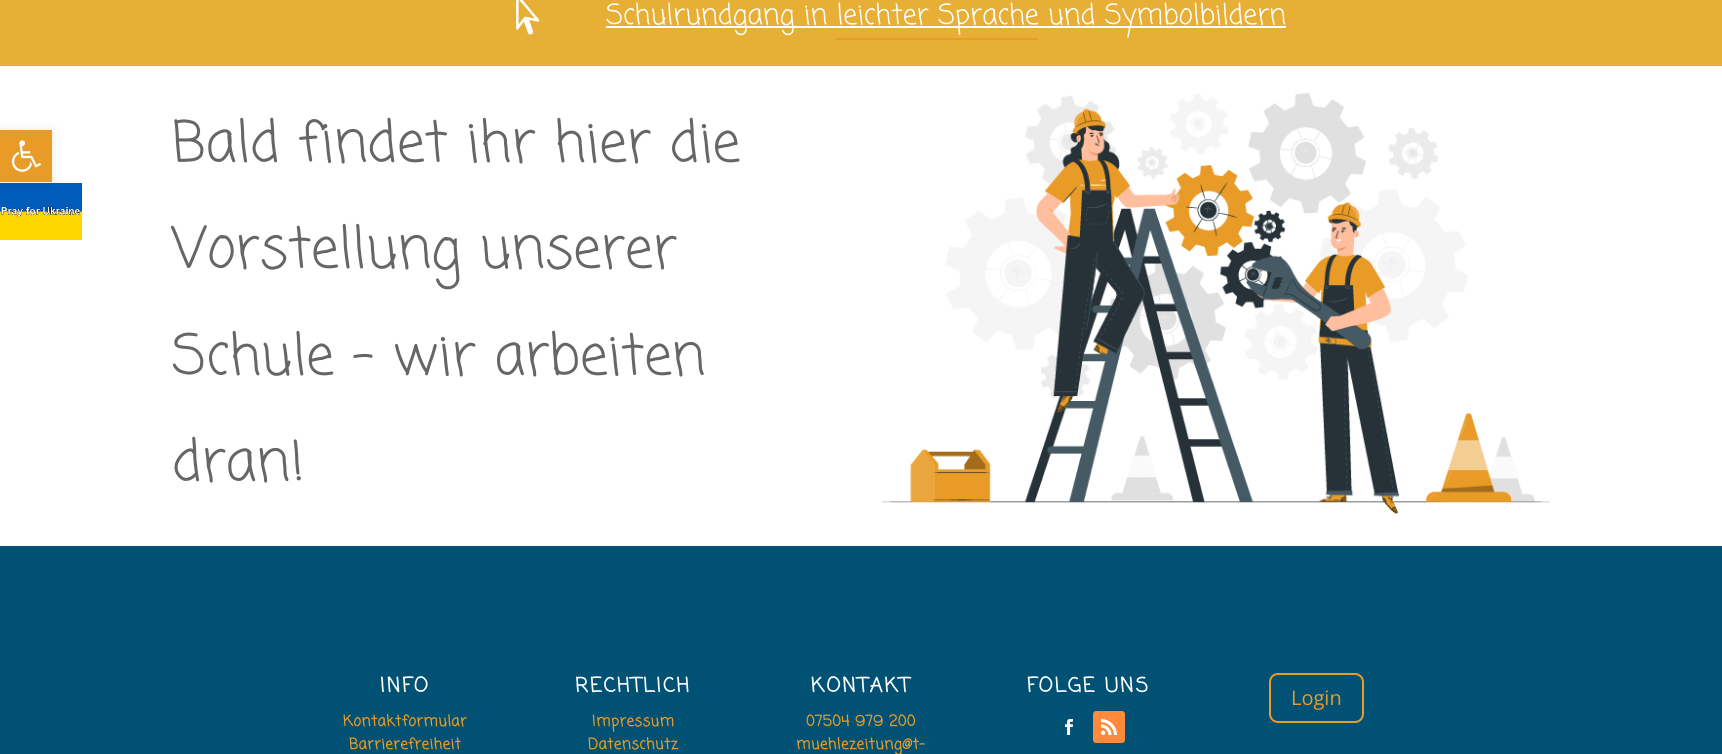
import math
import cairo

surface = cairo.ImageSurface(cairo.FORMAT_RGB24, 1722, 754)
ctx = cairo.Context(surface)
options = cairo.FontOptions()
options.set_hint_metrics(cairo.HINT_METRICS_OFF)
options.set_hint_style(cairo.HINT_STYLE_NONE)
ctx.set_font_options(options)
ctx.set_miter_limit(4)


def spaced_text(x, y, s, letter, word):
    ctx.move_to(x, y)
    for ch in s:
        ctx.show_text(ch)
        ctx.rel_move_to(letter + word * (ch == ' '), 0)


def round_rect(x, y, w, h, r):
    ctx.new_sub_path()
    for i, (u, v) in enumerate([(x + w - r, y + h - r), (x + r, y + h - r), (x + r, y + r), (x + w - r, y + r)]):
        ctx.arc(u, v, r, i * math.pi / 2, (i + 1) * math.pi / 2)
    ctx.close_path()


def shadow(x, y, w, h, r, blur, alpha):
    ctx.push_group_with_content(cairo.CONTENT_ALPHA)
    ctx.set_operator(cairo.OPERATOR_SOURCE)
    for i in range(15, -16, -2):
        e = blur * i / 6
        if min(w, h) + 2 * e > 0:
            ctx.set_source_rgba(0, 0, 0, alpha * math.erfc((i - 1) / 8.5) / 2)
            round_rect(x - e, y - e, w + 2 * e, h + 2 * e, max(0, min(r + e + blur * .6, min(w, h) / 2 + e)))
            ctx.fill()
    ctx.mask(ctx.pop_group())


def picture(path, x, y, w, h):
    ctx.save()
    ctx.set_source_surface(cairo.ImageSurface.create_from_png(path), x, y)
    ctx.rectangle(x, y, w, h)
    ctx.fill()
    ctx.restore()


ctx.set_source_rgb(1, 1, 1)
ctx.paint()
picture("img2.png", 0, 183, 82, 57)
ctx.set_source_rgb(0, 0, 0)
shadow(0, 130, 52, 52, 0, 5, 0.1)
ctx.set_source_rgb(0.91, 0.608, 0.149)
ctx.rectangle(0, 130, 52, 52)
ctx.fill()
picture("img1.png", 11, 140, 30, 32)
ctx.set_source_rgb(0.906, 0.686, 0.212)
ctx.rectangle(0, 0, 1722, 66)
ctx.fill()
picture("img3.png", 516, 0, 24, 35)
ctx.set_source_rgb(1, 1, 1)
ctx.rectangle(606, 26, 432, 2)
ctx.fill()
ctx.select_font_face("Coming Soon")
ctx.set_font_size(28)
ctx.move_to(606, 24)
ctx.show_text("Schulrundgang in leichter Sprache")
ctx.set_source_rgb(0.91, 0.608, 0.149)
ctx.rectangle(836, 38, 202, 2)
ctx.fill()
ctx.set_source_rgb(1, 1, 1)
ctx.rectangle(1038, 26, 248, 2)
ctx.fill()
ctx.move_to(1048, 24)
ctx.show_text("und Symbolbildern")
ctx.set_font_size(56)
ctx.set_source_rgb(0.4, 0.4, 0.4)
ctx.move_to(172, 161)
ctx.show_text("Bald findet ihr hier die")
ctx.move_to(172, 267)
ctx.show_text("Vorstellung unserer")
ctx.move_to(172, 374)
ctx.show_text("Schule – wir arbeiten")
ctx.move_to(172, 480)
ctx.show_text("dran!")
picture("img4.png", 882, 93, 668, 421)
ctx.set_source_rgb(0, 0.318, 0.455)
ctx.rectangle(0, 546, 1722, 208)
ctx.fill()
ctx.select_font_face("Coming Soon", cairo.FONT_SLANT_NORMAL, cairo.FONT_WEIGHT_BOLD)
ctx.set_font_size(20)
ctx.set_source_rgb(1, 1, 1)
spaced_text(380, 692, "INFO", 2, 0)
ctx.set_font_size(15)
ctx.set_source_rgb(0.91, 0.608, 0.149)
spaced_text(343, 726, "Kontaktformular", 0.5, 0)
spaced_text(349, 749, "Barrierefreiheit", 0.5, 0)
ctx.set_font_size(20)
ctx.set_source_rgb(1, 1, 1)
spaced_text(575, 692, "RECHTLICH", 2, 0)
ctx.set_font_size(15)
ctx.set_source_rgb(0.91, 0.608, 0.149)
spaced_text(592, 726, "Impressum", 0.5, 0)
spaced_text(588, 749, "Datenschutz", 0.5, 0)
ctx.set_font_size(20)
ctx.set_source_rgb(1, 1, 1)
spaced_text(811, 692, "KONTAKT", 2, 0)
ctx.set_font_size(15)
ctx.set_source_rgb(0.91, 0.608, 0.149)
spaced_text(806, 726, "07504 979 200", 0.5, 0)
spaced_text(796, 749, "muehlezeitung@t-", 0.5, 0)
ctx.set_font_size(20)
ctx.set_source_rgb(1, 1, 1)
spaced_text(1027, 692, "FOLGE UNS", 2, 0)
picture("img5.png", 1065, 719, 8, 16)
ctx.set_source_rgb(1, 0.541, 0.235)
round_rect(1093, 711, 32, 32, 3)
ctx.fill()
picture("img6.png", 1101, 719, 16, 16)
round_rect(1270, 674, 93, 48, 8)
ctx.set_source_rgb(0.91, 0.608, 0.149)
ctx.stroke()
ctx.select_font_face("Open Sans")
ctx.move_to(1291, 705)
ctx.show_text("Login")
surface.write_to_png("page.png")
